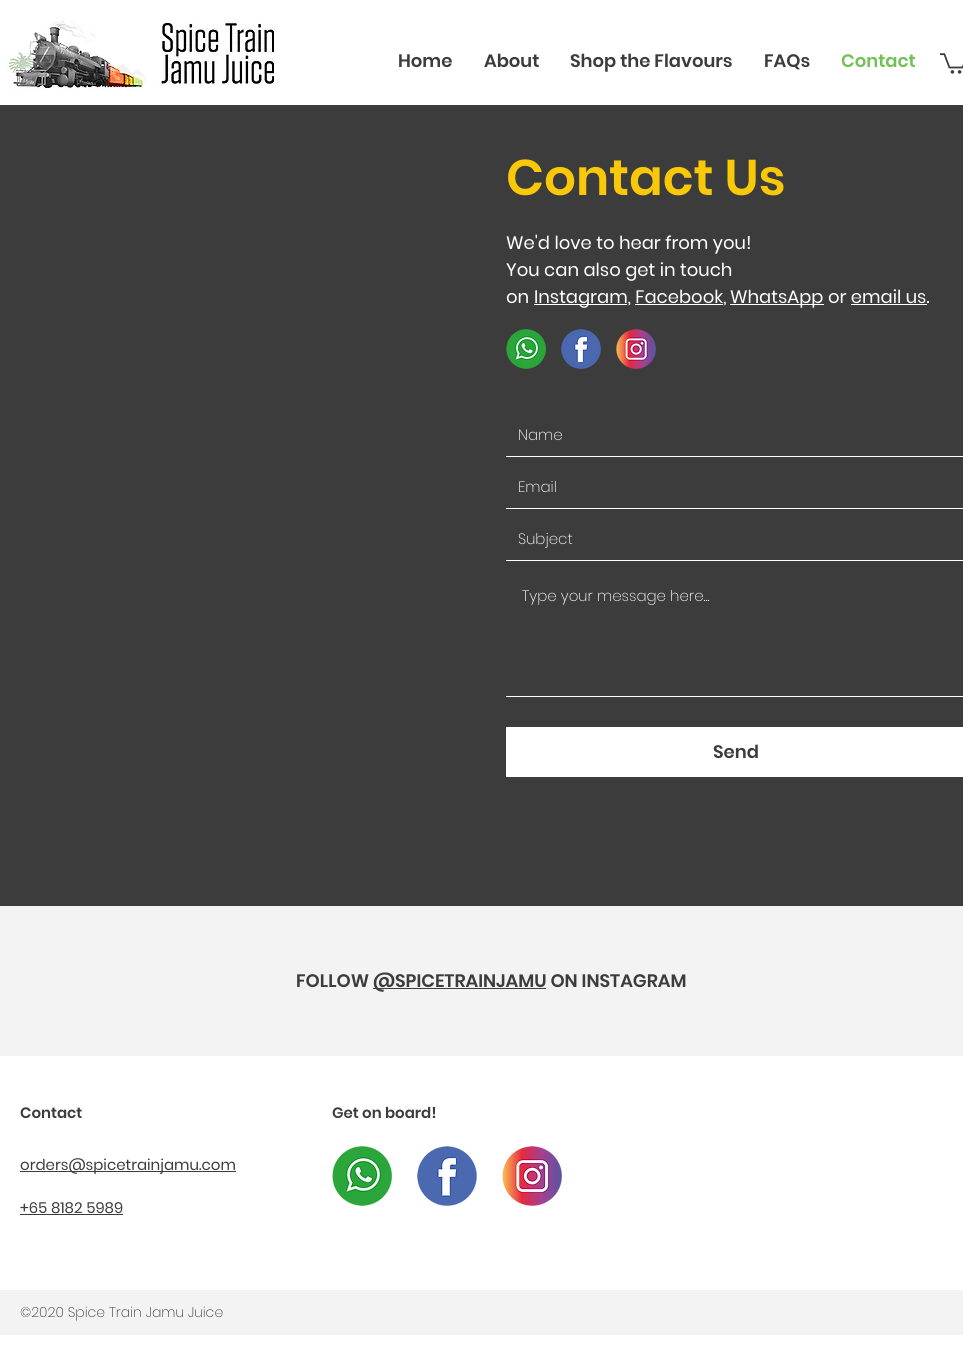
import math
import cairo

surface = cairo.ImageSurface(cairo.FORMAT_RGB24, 963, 1346)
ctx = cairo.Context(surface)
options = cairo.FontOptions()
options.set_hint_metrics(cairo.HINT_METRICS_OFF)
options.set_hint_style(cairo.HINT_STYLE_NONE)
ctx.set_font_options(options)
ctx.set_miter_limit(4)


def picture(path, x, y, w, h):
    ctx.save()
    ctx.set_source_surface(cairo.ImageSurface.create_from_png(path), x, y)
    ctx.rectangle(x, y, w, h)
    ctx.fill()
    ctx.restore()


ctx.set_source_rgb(1, 1, 1)
ctx.paint()
picture("img1.png", 6, 21, 268, 68)
ctx.select_font_face("Poppins SemiBold")
ctx.set_font_size(18)
ctx.set_source_rgb(0.235, 0.235, 0.235)
ctx.move_to(398, 67)
ctx.show_text("Home")
ctx.move_to(484, 67)
ctx.show_text("About")
ctx.move_to(570, 67)
ctx.show_text("Shop the Flavours")
ctx.move_to(764, 67)
ctx.show_text("FAQs")
ctx.set_source_rgb(0.451, 0.757, 0.341)
ctx.move_to(841, 67)
ctx.show_text("Contact")
picture("img2.png", 940, 53, 23, 21)
ctx.set_source_rgb(0.235, 0.235, 0.235)
ctx.rectangle(0, 105, 963, 801)
ctx.fill()
ctx.set_font_size(50)
ctx.set_source_rgb(0.973, 0.784, 0.039)
ctx.move_to(506, 195)
ctx.show_text("Contact Us")
ctx.select_font_face("Poppins")
ctx.set_font_size(18)
ctx.set_source_rgb(1, 1, 1)
ctx.move_to(506, 249)
ctx.show_text("We'd love to hear from you!")
ctx.move_to(506, 276)
ctx.show_text("You can also get in touch")
ctx.move_to(506, 303)
ctx.show_text("on")
ctx.rectangle(534, 304, 93, 1)
ctx.fill()
ctx.move_to(534, 303)
ctx.show_text("Instagram, Facebook,")
ctx.rectangle(635, 304, 88, 1)
ctx.fill()
ctx.rectangle(730, 304, 94, 1)
ctx.fill()
ctx.move_to(730, 303)
ctx.show_text("WhatsApp or email us.")
ctx.rectangle(851, 304, 76, 1)
ctx.fill()
picture("img3.png", 506, 329, 40, 40)
picture("img4.png", 561, 329, 40, 40)
picture("img5.png", 616, 329, 40, 40)
ctx.rectangle(506, 456, 457, 1)
ctx.fill()
ctx.select_font_face("Poppins ExtraLight")
ctx.set_font_size(15)
ctx.move_to(518, 440)
ctx.show_text("Name")
ctx.rectangle(506, 508, 457, 1)
ctx.fill()
ctx.move_to(518, 492)
ctx.show_text("Email")
ctx.rectangle(506, 560, 457, 1)
ctx.fill()
ctx.move_to(518, 544)
ctx.show_text("Subject")
ctx.rectangle(506, 696, 457, 1)
ctx.fill()
ctx.move_to(522, 601)
ctx.show_text("Type your message here...")
ctx.rectangle(506, 727, 457, 50)
ctx.fill()
ctx.select_font_face("Poppins SemiBold")
ctx.set_font_size(18)
ctx.set_source_rgb(0.235, 0.235, 0.235)
ctx.move_to(713, 758)
ctx.show_text("Send")
ctx.set_source_rgb(0.953, 0.953, 0.953)
ctx.rectangle(0, 906, 963, 150)
ctx.fill()
ctx.set_source_rgb(0.235, 0.235, 0.235)
ctx.move_to(296, 987)
ctx.show_text("FOLLOW")
ctx.rectangle(373, 988, 173, 1)
ctx.fill()
ctx.move_to(373, 987)
ctx.show_text("@SPICETRAINJAMU ON INSTAGRAM")
ctx.set_font_size(15)
ctx.move_to(20, 1118)
ctx.show_text("Contact")
ctx.move_to(332, 1118)
ctx.show_text("Get on board!")
ctx.rectangle(20, 1171, 216, 1)
ctx.fill()
ctx.select_font_face("Poppins")
ctx.move_to(20, 1170)
ctx.show_text("orders@spicetrainjamu.com")
picture("img6.png", 332, 1146, 60, 60)
picture("img7.png", 417, 1146, 60, 60)
picture("img8.png", 502, 1146, 60, 60)
ctx.move_to(20, 1213)
ctx.show_text("+65 8182 5989")
ctx.rectangle(20, 1214, 103, 1)
ctx.fill()
ctx.set_source_rgb(0.953, 0.953, 0.953)
ctx.rectangle(0, 1290, 963, 45)
ctx.fill()
ctx.select_font_face("Poppins ExtraLight")
ctx.set_font_size(14)
ctx.set_source_rgb(0.235, 0.235, 0.235)
ctx.move_to(20, 1317)
ctx.show_text("©2020 Spice Train Jamu Juice")
surface.write_to_png("page.png")
